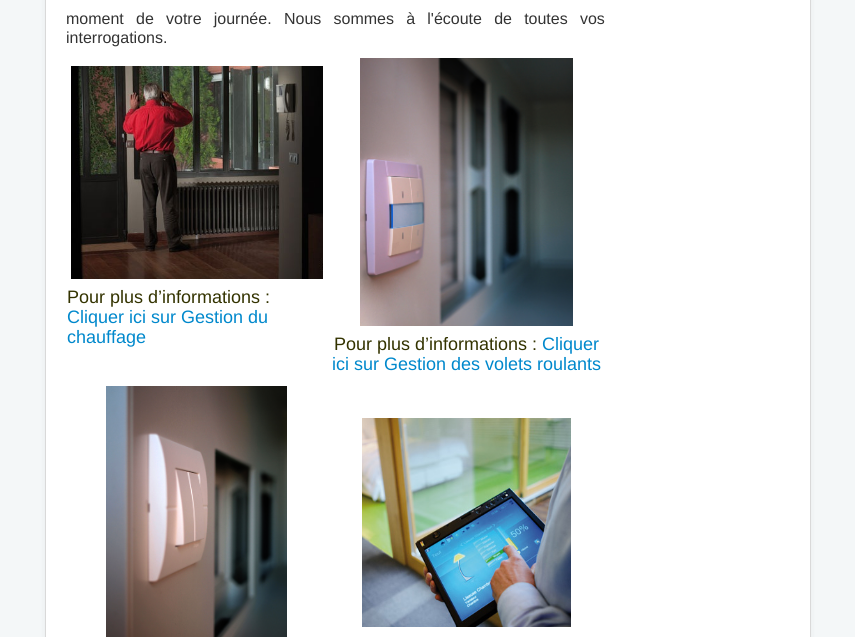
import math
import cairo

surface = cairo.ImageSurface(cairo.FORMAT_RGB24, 855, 637)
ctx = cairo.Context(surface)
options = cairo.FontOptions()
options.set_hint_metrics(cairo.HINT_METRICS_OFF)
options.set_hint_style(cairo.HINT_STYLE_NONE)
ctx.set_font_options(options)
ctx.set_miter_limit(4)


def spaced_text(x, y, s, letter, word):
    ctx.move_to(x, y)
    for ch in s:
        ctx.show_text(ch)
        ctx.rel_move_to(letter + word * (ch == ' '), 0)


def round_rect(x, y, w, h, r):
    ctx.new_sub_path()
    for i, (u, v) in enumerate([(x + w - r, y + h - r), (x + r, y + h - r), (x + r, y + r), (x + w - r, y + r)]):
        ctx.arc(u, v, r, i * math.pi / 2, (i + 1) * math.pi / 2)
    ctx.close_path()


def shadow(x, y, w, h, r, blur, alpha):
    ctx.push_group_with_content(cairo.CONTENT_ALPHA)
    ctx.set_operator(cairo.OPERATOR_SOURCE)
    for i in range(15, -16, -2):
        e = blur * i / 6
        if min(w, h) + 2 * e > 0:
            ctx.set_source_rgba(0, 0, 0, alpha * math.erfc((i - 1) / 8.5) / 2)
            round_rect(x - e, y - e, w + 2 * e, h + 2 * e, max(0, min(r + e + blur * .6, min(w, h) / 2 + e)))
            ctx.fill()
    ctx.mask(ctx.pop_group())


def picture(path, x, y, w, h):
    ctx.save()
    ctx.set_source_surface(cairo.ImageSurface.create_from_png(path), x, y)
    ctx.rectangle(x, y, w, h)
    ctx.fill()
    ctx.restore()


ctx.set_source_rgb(0.957, 0.965, 0.969)
ctx.paint()
ctx.set_source_rgb(0, 0, 0)
shadow(45, -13, 766, 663, 4, 3, 0.05)
ctx.set_source_rgb(1, 1, 1)
ctx.rectangle(45.5, -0.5, 765, 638)
ctx.fill_preserve()
ctx.set_source_rgb(0.851, 0.851, 0.851)
ctx.set_line_width(1)
ctx.stroke()
ctx.select_font_face("Liberation Sans")
ctx.set_font_size(16)
ctx.set_source_rgb(0.2, 0.2, 0.2)
spaced_text(66, 24, "moment de votre journée.", 0, 7.75)
spaced_text(284, 24, "Nous sommes à l'écoute de toutes vos", 0, 7.75)
ctx.move_to(66, 43)
ctx.show_text("interrogations.")
picture("img1.png", 71, 66, 252, 213)
ctx.set_font_size(18)
ctx.set_source_rgb(0.2, 0.2, 0)
ctx.move_to(67, 303)
ctx.show_text("Pour plus d’informations :")
ctx.set_source_rgb(0, 0.533, 0.8)
ctx.move_to(67, 323)
ctx.show_text("Cliquer ici sur Gestion du")
ctx.move_to(67, 343)
ctx.show_text("chauffage")
picture("img2.png", 360, 58, 213, 268)
ctx.set_source_rgb(0.2, 0.2, 0)
ctx.move_to(334, 350)
ctx.show_text("Pour plus d’informations :")
ctx.set_source_rgb(0, 0.533, 0.8)
ctx.move_to(542, 350)
ctx.show_text("Cliquer")
ctx.move_to(332, 370)
ctx.show_text("ici sur Gestion des volets roulants")
picture("img3.png", 106, 386, 181, 251)
picture("img4.png", 362, 418, 209, 209)
surface.write_to_png("page.png")
